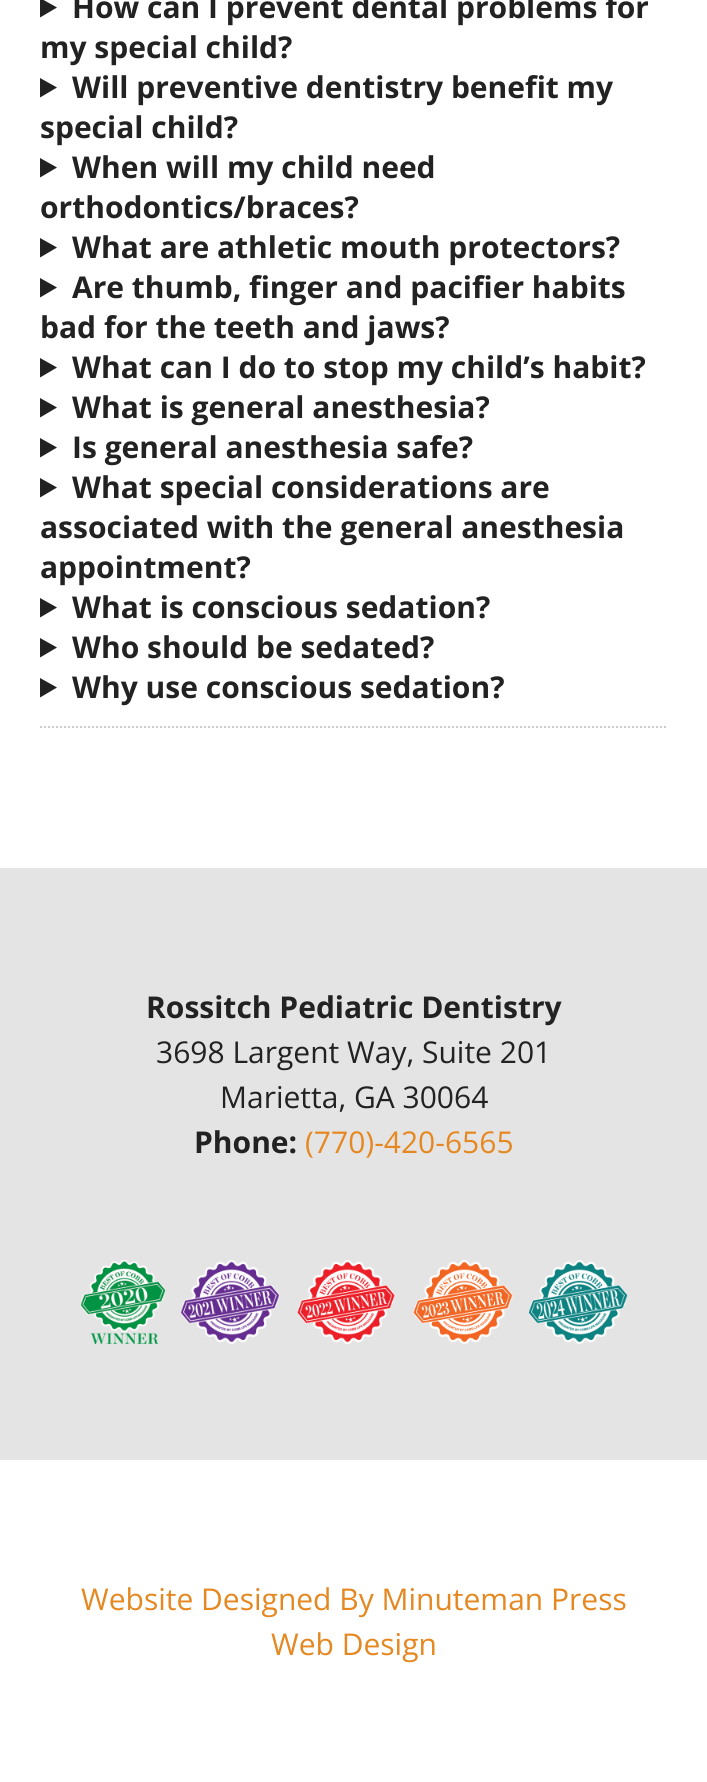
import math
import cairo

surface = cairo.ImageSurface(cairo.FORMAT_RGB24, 707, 1782)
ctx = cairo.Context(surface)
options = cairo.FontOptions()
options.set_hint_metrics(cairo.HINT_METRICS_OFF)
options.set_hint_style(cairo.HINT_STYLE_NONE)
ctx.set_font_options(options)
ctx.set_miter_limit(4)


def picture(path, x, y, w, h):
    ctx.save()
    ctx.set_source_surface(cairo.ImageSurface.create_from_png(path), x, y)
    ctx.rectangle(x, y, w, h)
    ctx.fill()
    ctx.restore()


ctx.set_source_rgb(1, 1, 1)
ctx.paint()
ctx.set_source_rgb(0.133, 0.133, 0.133)
ctx.new_path()
ctx.move_to(40, -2)
ctx.line_to(57, 7.5)
ctx.line_to(40, 17.5)
ctx.close_path()
ctx.fill()
ctx.select_font_face("Open Sans", cairo.FONT_SLANT_NORMAL, cairo.FONT_WEIGHT_BOLD)
ctx.set_font_size(30)
ctx.move_to(72, 18)
ctx.show_text("How can I prevent dental problems for")
ctx.move_to(40, 58)
ctx.show_text("my special child?")
ctx.new_path()
ctx.move_to(40, 78)
ctx.line_to(57, 87.5)
ctx.line_to(40, 97.5)
ctx.close_path()
ctx.fill()
ctx.move_to(72, 98)
ctx.show_text("Will preventive dentistry benefit my")
ctx.move_to(40, 138)
ctx.show_text("special child?")
ctx.new_path()
ctx.move_to(40, 158)
ctx.line_to(57, 167.5)
ctx.line_to(40, 177.5)
ctx.close_path()
ctx.fill()
ctx.move_to(72, 178)
ctx.show_text("When will my child need")
ctx.move_to(40, 218)
ctx.show_text("orthodontics/braces?")
ctx.new_path()
ctx.move_to(40, 238)
ctx.line_to(57, 247.5)
ctx.line_to(40, 257.5)
ctx.close_path()
ctx.fill()
ctx.move_to(72, 258)
ctx.show_text("What are athletic mouth protectors?")
ctx.new_path()
ctx.move_to(40, 278)
ctx.line_to(57, 287.5)
ctx.line_to(40, 297.5)
ctx.close_path()
ctx.fill()
ctx.move_to(72, 298)
ctx.show_text("Are thumb, finger and pacifier habits")
ctx.move_to(40, 338)
ctx.show_text("bad for the teeth and jaws?")
ctx.new_path()
ctx.move_to(40, 358)
ctx.line_to(57, 367.5)
ctx.line_to(40, 377.5)
ctx.close_path()
ctx.fill()
ctx.move_to(72, 378)
ctx.show_text("What can I do to stop my child’s habit?")
ctx.new_path()
ctx.move_to(40, 398)
ctx.line_to(57, 407.5)
ctx.line_to(40, 417.5)
ctx.close_path()
ctx.fill()
ctx.move_to(72, 418)
ctx.show_text("What is general anesthesia?")
ctx.new_path()
ctx.move_to(40, 438)
ctx.line_to(57, 447.5)
ctx.line_to(40, 457.5)
ctx.close_path()
ctx.fill()
ctx.move_to(72, 458)
ctx.show_text("Is general anesthesia safe?")
ctx.new_path()
ctx.move_to(40, 478)
ctx.line_to(57, 487.5)
ctx.line_to(40, 497.5)
ctx.close_path()
ctx.fill()
ctx.move_to(72, 498)
ctx.show_text("What special considerations are")
ctx.move_to(40, 538)
ctx.show_text("associated with the general anesthesia")
ctx.move_to(40, 578)
ctx.show_text("appointment?")
ctx.new_path()
ctx.move_to(40, 598)
ctx.line_to(57, 607.5)
ctx.line_to(40, 617.5)
ctx.close_path()
ctx.fill()
ctx.move_to(72, 618)
ctx.show_text("What is conscious sedation?")
ctx.new_path()
ctx.move_to(40, 638)
ctx.line_to(57, 647.5)
ctx.line_to(40, 657.5)
ctx.close_path()
ctx.fill()
ctx.move_to(72, 658)
ctx.show_text("Who should be sedated?")
ctx.new_path()
ctx.move_to(40, 678)
ctx.line_to(57, 687.5)
ctx.line_to(40, 697.5)
ctx.close_path()
ctx.fill()
ctx.move_to(72, 698)
ctx.show_text("Why use conscious sedation?")
ctx.new_path()
ctx.move_to(40, 727)
ctx.line_to(668, 727)
ctx.set_source_rgb(0.8, 0.8, 0.8)
ctx.set_dash([2, 2])
ctx.stroke()
ctx.set_source_rgb(0.894, 0.894, 0.894)
ctx.rectangle(0, 868, 707, 592)
ctx.fill()
ctx.set_source_rgb(0.133, 0.133, 0.133)
ctx.move_to(146, 1018)
ctx.show_text("Rossitch Pediatric Dentistry")
ctx.select_font_face("Open Sans")
ctx.move_to(156, 1063)
ctx.show_text("3698 Largent Way, Suite 201")
ctx.move_to(220, 1108)
ctx.show_text("Marietta, GA 30064")
ctx.select_font_face("Open Sans", cairo.FONT_SLANT_NORMAL, cairo.FONT_WEIGHT_BOLD)
ctx.move_to(194, 1153)
ctx.show_text("Phone:")
ctx.select_font_face("Open Sans")
ctx.set_source_rgb(0.902, 0.533, 0.129)
ctx.move_to(305, 1153)
ctx.show_text("(770)-420-6565")
picture("img1.png", 80, 1260, 86, 84)
picture("img2.png", 180, 1260, 100, 84)
picture("img3.png", 297, 1260, 99, 84)
picture("img4.png", 413, 1260, 100, 84)
picture("img5.png", 528, 1260, 100, 84)
ctx.move_to(81, 1610)
ctx.show_text("Website Designed By Minuteman Press")
ctx.move_to(271, 1655)
ctx.show_text("Web Design")
surface.write_to_png("page.png")
